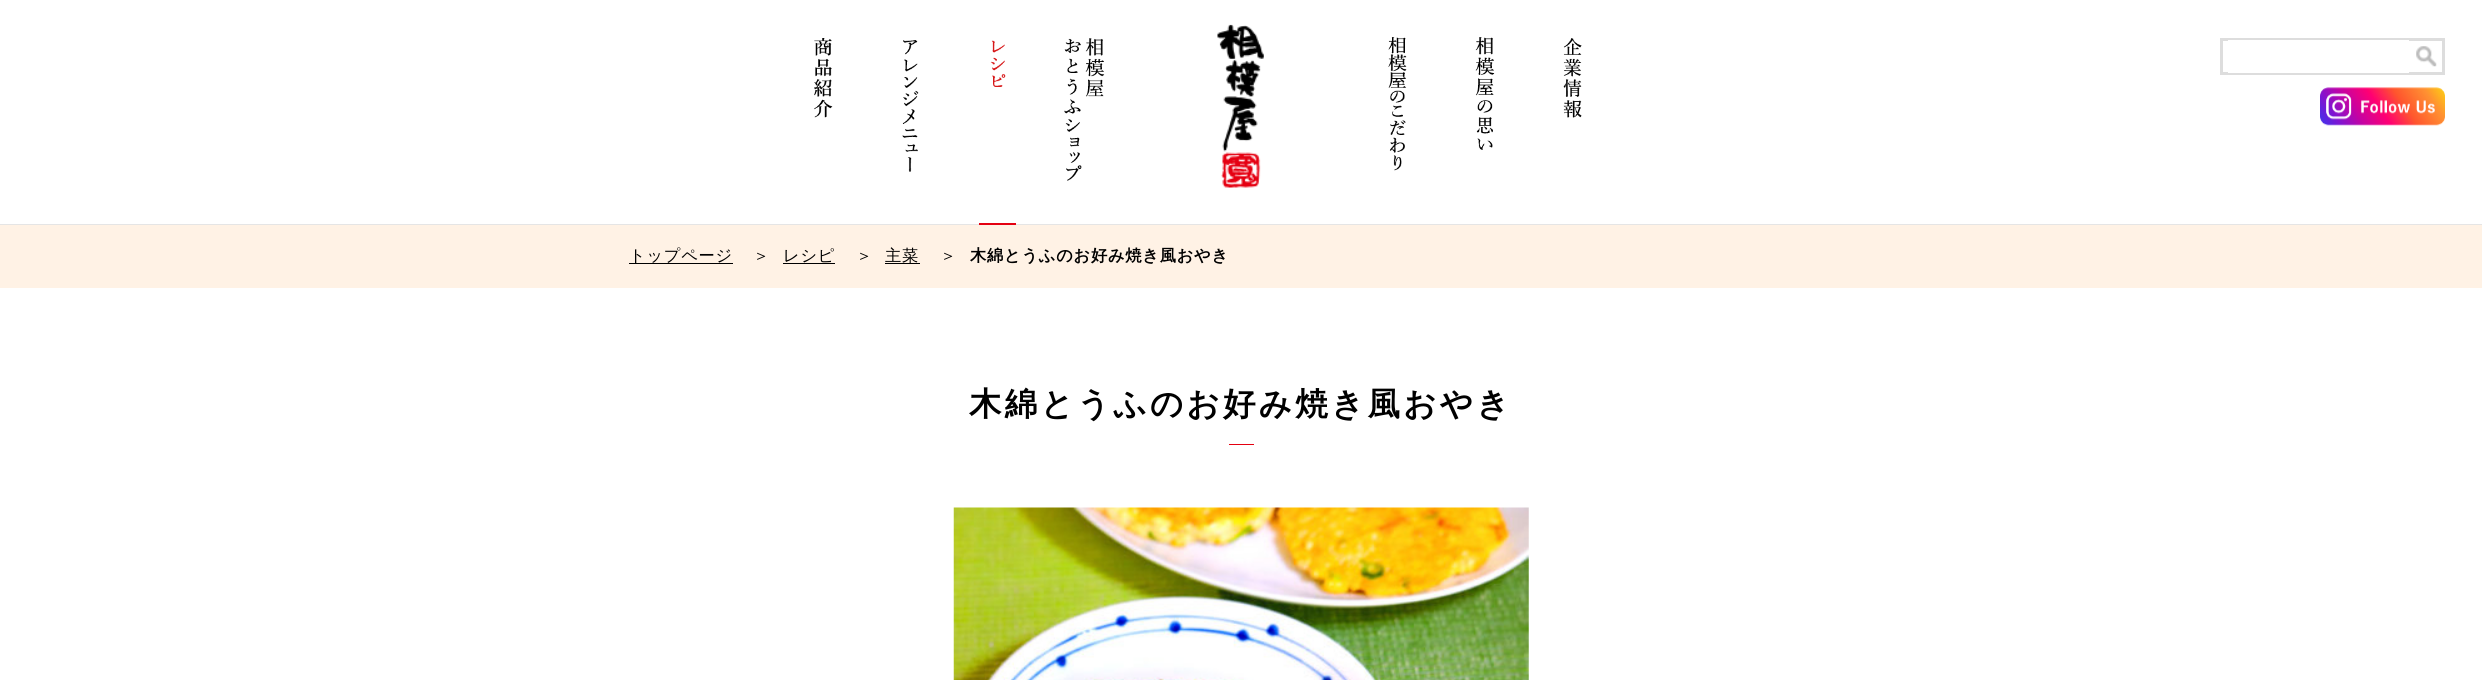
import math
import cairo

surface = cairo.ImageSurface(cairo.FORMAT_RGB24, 2482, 680)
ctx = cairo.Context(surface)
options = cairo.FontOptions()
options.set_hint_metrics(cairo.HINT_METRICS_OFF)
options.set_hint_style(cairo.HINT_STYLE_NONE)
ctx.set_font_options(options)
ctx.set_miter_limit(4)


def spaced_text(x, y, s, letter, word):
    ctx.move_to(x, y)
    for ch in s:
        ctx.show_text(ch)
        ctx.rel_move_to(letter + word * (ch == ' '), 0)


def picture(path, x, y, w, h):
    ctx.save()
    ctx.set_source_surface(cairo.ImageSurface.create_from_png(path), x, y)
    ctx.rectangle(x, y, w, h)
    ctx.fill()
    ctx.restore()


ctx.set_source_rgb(1, 1, 1)
ctx.paint()
ctx.set_source_rgb(0.898, 0.898, 0.898)
ctx.rectangle(0, 224, 2482, 1)
ctx.fill()
picture("img1.png", 1217, 24, 47, 164)
picture("img2.png", 814, 38, 19, 80)
picture("img3.png", 902, 40, 17, 132)
picture("img4.png", 990, 40, 16, 47)
ctx.set_source_rgb(0.894, 0, 0.067)
ctx.rectangle(979, 223, 37, 2)
ctx.fill()
picture("img5.png", 1064, 38, 41, 143)
picture("img6.png", 1388, 37, 19, 134)
picture("img7.png", 1475, 37, 20, 113)
picture("img8.png", 1563, 38, 19, 80)
ctx.rectangle(2221.5, 39.5, 222, 34)
ctx.set_source_rgb(0.867, 0.867, 0.867)
ctx.set_line_width(3)
ctx.stroke()
ctx.set_source_rgb(1, 1, 1)
ctx.rectangle(2228, 40, 181, 33)
ctx.fill()
picture("img9.png", 2416, 46, 21, 21)
picture("img10.png", 2320, 87, 125, 39)
ctx.set_source_rgb(1, 0.949, 0.898)
ctx.rectangle(0, 225, 2482, 63)
ctx.fill()
ctx.select_font_face("WenQuanYi Zen Hei Medium")
ctx.set_font_size(16.25)
ctx.set_source_rgb(0, 0, 0)
spaced_text(629, 261, "トップページ", 0.75, 0)
ctx.rectangle(629, 263, 104, 1)
ctx.fill()
spaced_text(753, 261, "＞", 0.75, 0)
spaced_text(783, 261, "レシピ", 0.75, 0)
ctx.rectangle(783, 263, 52, 1)
ctx.fill()
spaced_text(856, 261, "＞", 0.75, 0)
spaced_text(885, 261, "主菜", 0.75, 0)
ctx.rectangle(885, 263, 35, 1)
ctx.fill()
spaced_text(940, 261, "＞", 0.75, 0)
ctx.select_font_face("WenQuanYi Zen Hei", cairo.FONT_SLANT_NORMAL, cairo.FONT_WEIGHT_BOLD)
spaced_text(970, 261, "木綿とうふのお好み焼き風おやき", 0.75, 0)
ctx.set_font_size(32.5)
spaced_text(969, 415, "木綿とうふのお好み焼き風おやき", 3.25, 0)
ctx.set_source_rgb(0.894, 0, 0.067)
ctx.rectangle(1229, 444, 25, 1)
ctx.fill()
picture("img11.png", 953, 507, 576, 173)
surface.write_to_png("page.png")
